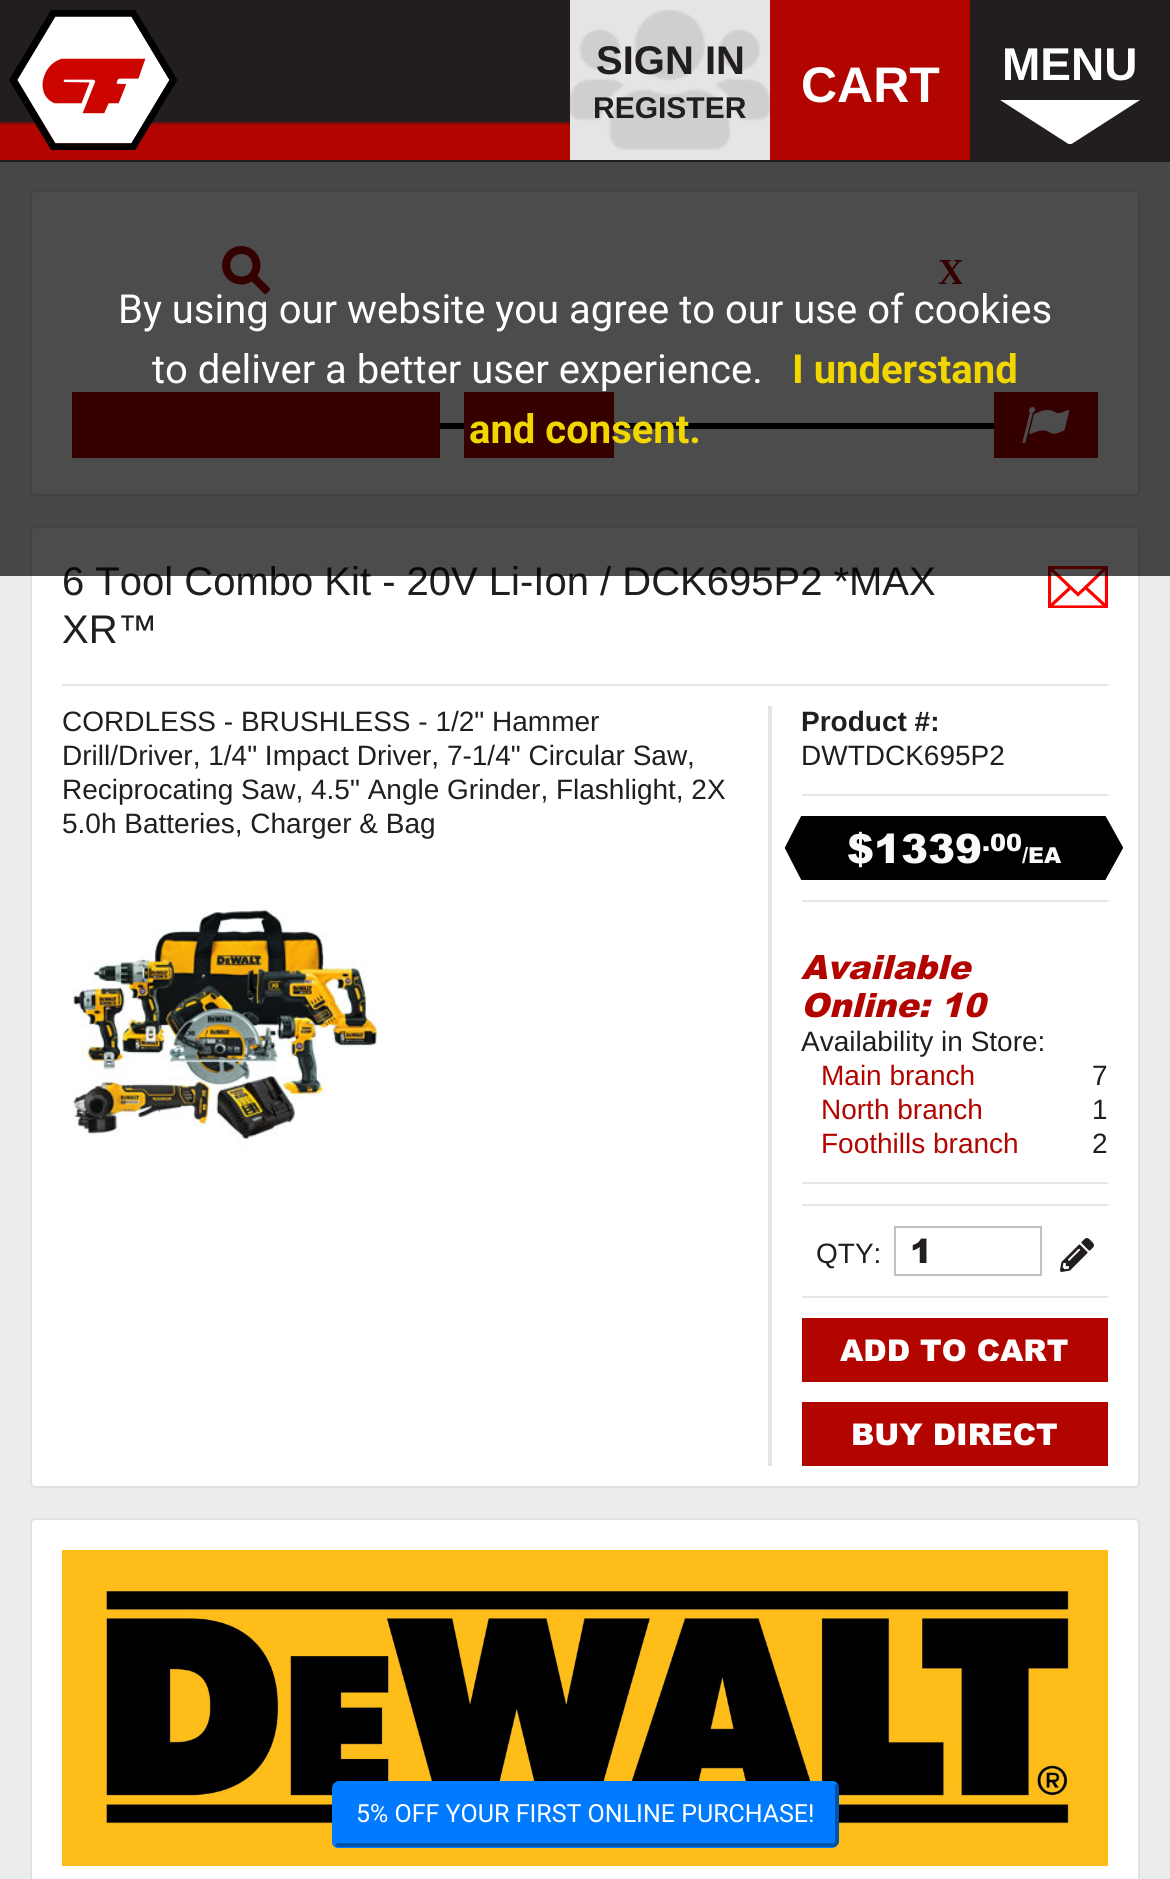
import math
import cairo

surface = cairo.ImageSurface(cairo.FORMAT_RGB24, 1170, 1879)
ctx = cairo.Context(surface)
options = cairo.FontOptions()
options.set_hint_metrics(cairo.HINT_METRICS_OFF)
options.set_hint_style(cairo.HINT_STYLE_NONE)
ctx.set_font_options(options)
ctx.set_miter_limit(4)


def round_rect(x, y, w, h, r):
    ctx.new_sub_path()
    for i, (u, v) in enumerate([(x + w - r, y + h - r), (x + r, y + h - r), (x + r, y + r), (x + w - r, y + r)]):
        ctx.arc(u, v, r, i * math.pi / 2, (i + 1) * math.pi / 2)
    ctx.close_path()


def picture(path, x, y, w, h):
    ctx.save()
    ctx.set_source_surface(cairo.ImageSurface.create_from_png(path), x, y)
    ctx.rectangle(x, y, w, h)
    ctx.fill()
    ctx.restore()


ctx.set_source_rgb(0.918, 0.929, 0.929)
ctx.paint()
picture("img1.png", 0, 0, 570, 160)
picture("img2.png", 9, 10, 169, 140)
ctx.set_source_rgb(0.898, 0.898, 0.898)
ctx.rectangle(570, 0, 200, 160)
ctx.fill()
picture("img3.png", 570, 10, 200, 140)
ctx.select_font_face("Liberation Sans", cairo.FONT_SLANT_NORMAL, cairo.FONT_WEIGHT_BOLD)
ctx.set_font_size(40)
ctx.set_source_rgb(0.133, 0.118, 0.122)
ctx.move_to(596, 74)
ctx.show_text("SIGN IN")
ctx.set_font_size(30)
ctx.move_to(593, 118)
ctx.show_text("REGISTER")
ctx.set_source_rgb(0.698, 0.02, 0)
ctx.rectangle(770, 0, 200, 160)
ctx.fill()
ctx.set_font_size(50)
ctx.set_source_rgb(1, 1, 1)
ctx.move_to(801, 102)
ctx.show_text("CART")
ctx.set_source_rgb(0.133, 0.118, 0.122)
ctx.rectangle(970, 0, 200, 160)
ctx.fill()
ctx.set_font_size(46)
ctx.set_source_rgb(1, 1, 1)
ctx.move_to(1002, 80)
ctx.show_text("MENU")
ctx.save()
ctx.rectangle(1000, 100, 140, 44)
ctx.clip()
ctx.new_path()
ctx.move_to(1070, 145)
ctx.line_to(1000, 100)
ctx.line_to(1140, 100)
ctx.close_path()
ctx.fill()
ctx.restore()
ctx.set_source_rgb(0.133, 0.118, 0.122)
ctx.rectangle(0, 160, 1170, 2)
ctx.fill()
ctx.set_source_rgb(1, 1, 1)
round_rect(30, 190, 1110, 306, 5)
ctx.fill()
round_rect(31, 191, 1108, 304, 4)
ctx.set_source_rgba(0, 0, 0, 0.12)
ctx.stroke()
ctx.set_source_rgb(0.698, 0.02, 0)
ctx.new_path()
ctx.move_to(241.5, 254)
ctx.curve_to(226.5, 254, 226.5, 276.5, 241.5, 276.5)
ctx.curve_to(256, 276.5, 256, 254, 241.5, 254)
ctx.move_to(241.5, 246)
ctx.curve_to(252, 246, 260.5, 254.5, 260.5, 265.5)
ctx.curve_to(260.5, 276, 252, 284.5, 241.5, 284.5)
ctx.curve_to(230.5, 284.5, 222, 276, 222, 265.5)
ctx.curve_to(222, 254.5, 230.5, 246, 241.5, 246)
ctx.close_path()
ctx.fill()
ctx.save()
ctx.rectangle(222, 246, 48, 48)
ctx.clip()
ctx.new_path()
ctx.move_to(268, 292)
ctx.line_to(253.5, 277.5)
ctx.set_line_width(8)
ctx.stroke()
ctx.restore()
picture("img4.png", 938, 260, 24, 24)
ctx.rectangle(72, 392, 368, 66)
ctx.fill()
ctx.set_source_rgb(0, 0, 0)
ctx.rectangle(440, 423, 554, 6)
ctx.fill()
ctx.set_source_rgb(0.698, 0.02, 0)
ctx.rectangle(464, 392, 150, 66)
ctx.fill()
ctx.rectangle(994, 392, 104, 66)
ctx.fill()
picture("img5.png", 1022, 407, 48, 36)
ctx.set_source_rgb(1, 1, 1)
round_rect(30, 526, 1110, 962, 5)
ctx.fill()
round_rect(31, 527, 1108, 960, 4)
ctx.set_source_rgba(0, 0, 0, 0.12)
ctx.stroke()
ctx.select_font_face("Liberation Sans")
ctx.set_font_size(40)
ctx.set_source_rgb(0.133, 0.118, 0.122)
ctx.move_to(62, 595)
ctx.show_text("6 Tool Combo Kit - 20V Li-Ion / DCK695P2 *MAX")
ctx.new_path()
ctx.move_to(1049.5, 567.5)
ctx.line_to(1078, 594.5)
ctx.line_to(1085.5, 587.5)
ctx.line_to(1106.5, 607)
ctx.move_to(1049.5, 607)
ctx.line_to(1070.5, 587.5)
ctx.set_source_rgb(1, 0, 0)
ctx.set_line_width(3.2)
ctx.stroke()
ctx.save()
ctx.rectangle(1048, 566, 60, 42)
ctx.clip()
ctx.new_path()
ctx.move_to(1078, 607)
ctx.line_to(1106.5, 607)
ctx.line_to(1106.5, 567.5)
ctx.line_to(1049.5, 567.5)
ctx.line_to(1049.5, 607)
ctx.line_to(1078, 607)
ctx.move_to(1085.5, 587.5)
ctx.line_to(1106, 567.5)
ctx.stroke()
ctx.restore()
ctx.set_source_rgba(0, 0, 0, 0.7)
ctx.rectangle(0, 162, 1170, 414)
ctx.fill()
ctx.select_font_face("Roboto")
ctx.set_source_rgb(1, 1, 1)
ctx.move_to(118, 323)
ctx.show_text("By using our website you agree to our use of cookies")
ctx.move_to(152, 383)
ctx.show_text("to deliver a better user experience.")
ctx.select_font_face("Roboto", cairo.FONT_SLANT_NORMAL, cairo.FONT_WEIGHT_BOLD)
ctx.set_source_rgb(0.945, 0.839, 0)
ctx.move_to(792, 383)
ctx.show_text("I understand")
ctx.move_to(469, 443)
ctx.show_text("and consent.")
ctx.select_font_face("Liberation Sans")
ctx.set_source_rgb(0.133, 0.118, 0.122)
ctx.move_to(62, 643)
ctx.show_text("XR™")
ctx.set_source_rgb(0.902, 0.902, 0.902)
ctx.rectangle(62, 684, 1046, 2)
ctx.fill()
ctx.set_source_rgb(0.898, 0.898, 0.898)
ctx.rectangle(768, 706, 4, 760)
ctx.fill()
ctx.set_font_size(28)
ctx.set_source_rgb(0.133, 0.118, 0.122)
ctx.move_to(62, 731)
ctx.show_text("CORDLESS - BRUSHLESS - 1/2\" Hammer")
ctx.move_to(62, 765)
ctx.show_text("Drill/Driver, 1/4\" Impact Driver, 7-1/4\" Circular Saw,")
ctx.move_to(62, 799)
ctx.show_text("Reciprocating Saw, 4.5\" Angle Grinder, Flashlight, 2X")
ctx.move_to(62, 833)
ctx.show_text("5.0h Batteries, Charger & Bag")
picture("img6.png", 72, 902, 306, 244)
ctx.select_font_face("Liberation Sans", cairo.FONT_SLANT_NORMAL, cairo.FONT_WEIGHT_BOLD)
ctx.move_to(801, 731)
ctx.show_text("Product #:")
ctx.select_font_face("Liberation Sans")
ctx.move_to(801, 765)
ctx.show_text("DWTDCK695P2")
ctx.set_source_rgb(0.902, 0.902, 0.902)
ctx.rectangle(802, 794, 306, 2)
ctx.fill()
picture("img7.png", 784, 816, 20, 64)
ctx.set_source_rgb(0, 0, 0)
ctx.rectangle(804, 816, 300, 64)
ctx.fill()
ctx.select_font_face("Arial Black")
ctx.set_font_size(40.5)
ctx.set_source_rgb(0.976, 0.973, 0.973)
ctx.move_to(847, 863)
ctx.show_text("$1339")
ctx.set_font_size(24)
ctx.move_to(982, 851)
ctx.show_text(".00")
ctx.set_font_size(22)
ctx.move_to(1022, 863)
ctx.show_text("/EA")
picture("img8.png", 1104, 816, 20, 64)
ctx.set_source_rgb(0.902, 0.902, 0.902)
ctx.rectangle(802, 900, 306, 2)
ctx.fill()
ctx.select_font_face("Arial Black", cairo.FONT_SLANT_ITALIC)
ctx.set_font_size(33.5)
ctx.set_source_rgb(0.698, 0.02, 0)
ctx.move_to(801, 979)
ctx.show_text("Available")
ctx.move_to(801, 1017)
ctx.show_text("Online: 10")
ctx.select_font_face("Liberation Sans")
ctx.set_font_size(28)
ctx.set_source_rgb(0.133, 0.118, 0.122)
ctx.move_to(801, 1051)
ctx.show_text("Availability in Store:")
ctx.set_source_rgb(0.698, 0.02, 0)
ctx.move_to(821, 1085)
ctx.show_text("Main branch")
ctx.set_source_rgb(0.133, 0.118, 0.122)
ctx.move_to(1092, 1085)
ctx.show_text("7")
ctx.set_source_rgb(0.698, 0.02, 0)
ctx.move_to(821, 1119)
ctx.show_text("North branch")
ctx.set_source_rgb(0.133, 0.118, 0.122)
ctx.move_to(1092, 1119)
ctx.show_text("1")
ctx.set_source_rgb(0.698, 0.02, 0)
ctx.move_to(821, 1153)
ctx.show_text("Foothills branch")
ctx.set_source_rgb(0.133, 0.118, 0.122)
ctx.move_to(1092, 1153)
ctx.show_text("2")
ctx.set_source_rgb(0.902, 0.902, 0.902)
ctx.rectangle(802, 1182, 306, 2)
ctx.fill()
ctx.rectangle(802, 1204, 306, 2)
ctx.fill()
ctx.set_source_rgb(0.133, 0.118, 0.122)
ctx.move_to(816, 1263)
ctx.show_text("QTY:")
ctx.rectangle(895, 1227, 146, 48)
ctx.set_source_rgb(0.741, 0.761, 0.788)
ctx.set_line_width(2)
ctx.stroke()
ctx.select_font_face("Arial Black")
ctx.set_font_size(33.5)
ctx.set_source_rgb(0.133, 0.118, 0.122)
ctx.move_to(910, 1263)
ctx.show_text("1")
picture("img9.png", 1060, 1238, 34, 34)
ctx.set_source_rgb(0.902, 0.902, 0.902)
ctx.rectangle(802, 1296, 306, 2)
ctx.fill()
ctx.set_source_rgb(0.698, 0.02, 0)
ctx.rectangle(802, 1318, 306, 64)
ctx.fill()
ctx.set_font_size(30)
ctx.set_source_rgb(1, 1, 1)
ctx.move_to(840, 1361)
ctx.show_text("ADD TO CART")
ctx.set_source_rgb(0.698, 0.02, 0)
ctx.rectangle(802, 1402, 306, 64)
ctx.fill()
ctx.set_source_rgb(1, 1, 1)
ctx.move_to(851, 1445)
ctx.show_text("BUY DIRECT")
round_rect(30, 1518, 1110, 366, 5)
ctx.fill()
round_rect(31, 1519, 1108, 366, 4)
ctx.set_source_rgba(0, 0, 0, 0.12)
ctx.stroke()
picture("img10.png", 62, 1550, 1046, 316)
ctx.set_source_rgb(0, 0.482, 1)
round_rect(332, 1782, 506, 66, 6)
ctx.fill()
ctx.new_path()
ctx.move_to(835.5, 1784.5)
ctx.curve_to(836.5, 1785, 837, 1786, 837, 1787)
ctx.line_to(837, 1841)
ctx.curve_to(837, 1842.5, 836.5, 1843.5, 835.5, 1844)
ctx.curve_to(835, 1845, 834, 1845, 833, 1845)
ctx.line_to(339, 1845)
ctx.curve_to(337.5, 1845, 336.5, 1845, 336, 1844)
ctx.set_source_rgb(0, 0.322, 0.667)
ctx.set_line_width(4)
ctx.stroke()
ctx.new_path()
ctx.move_to(336, 1844)
ctx.curve_to(335, 1843.5, 335, 1842.5, 335, 1841)
ctx.line_to(335, 1787)
ctx.curve_to(335, 1786, 335, 1785, 336, 1784.5)
ctx.curve_to(336.5, 1783.5, 337.5, 1783, 339, 1783)
ctx.line_to(833, 1783)
ctx.curve_to(834, 1783, 835, 1783.5, 835.5, 1784.5)
ctx.set_source_rgb(0, 0.482, 1)
ctx.stroke()
ctx.select_font_face("Roboto")
ctx.set_font_size(25)
ctx.set_source_rgb(1, 1, 1)
ctx.move_to(356, 1822)
ctx.show_text("5% OFF YOUR FIRST ONLINE PURCHASE!")
surface.write_to_png("page.png")
